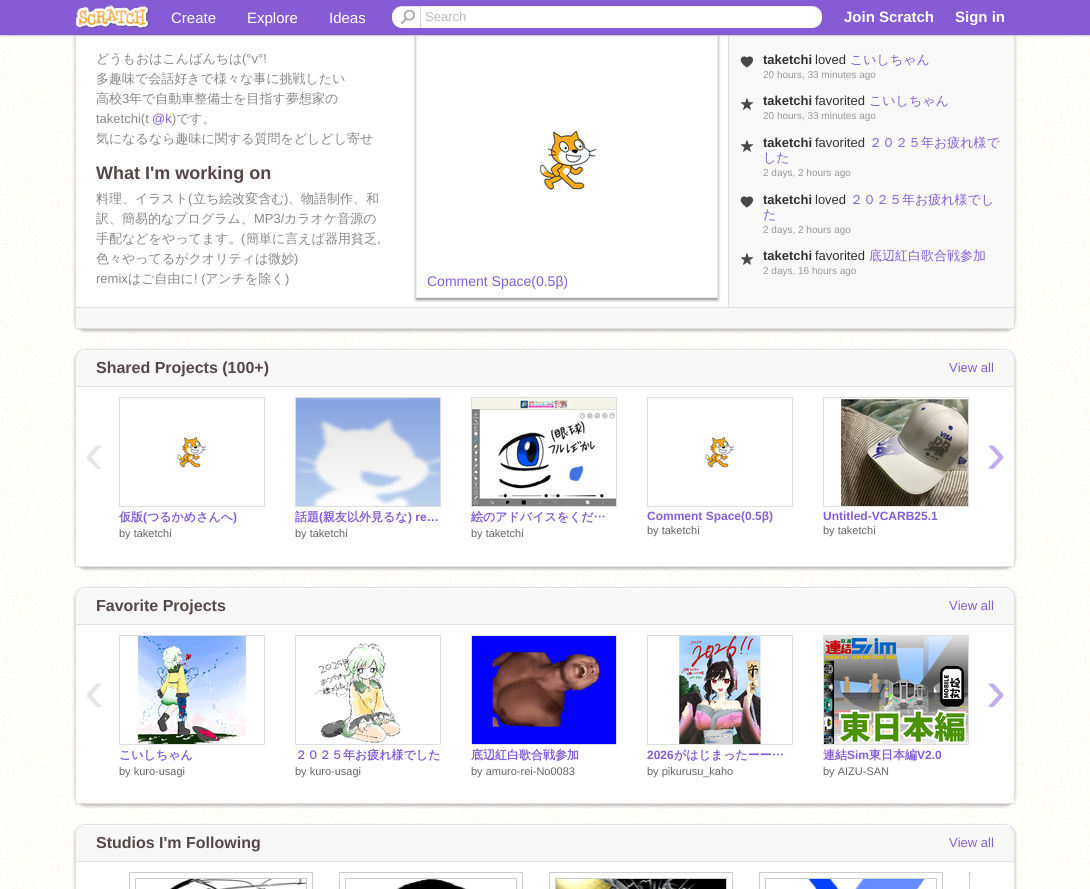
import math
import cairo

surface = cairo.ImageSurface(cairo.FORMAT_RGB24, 1090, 889)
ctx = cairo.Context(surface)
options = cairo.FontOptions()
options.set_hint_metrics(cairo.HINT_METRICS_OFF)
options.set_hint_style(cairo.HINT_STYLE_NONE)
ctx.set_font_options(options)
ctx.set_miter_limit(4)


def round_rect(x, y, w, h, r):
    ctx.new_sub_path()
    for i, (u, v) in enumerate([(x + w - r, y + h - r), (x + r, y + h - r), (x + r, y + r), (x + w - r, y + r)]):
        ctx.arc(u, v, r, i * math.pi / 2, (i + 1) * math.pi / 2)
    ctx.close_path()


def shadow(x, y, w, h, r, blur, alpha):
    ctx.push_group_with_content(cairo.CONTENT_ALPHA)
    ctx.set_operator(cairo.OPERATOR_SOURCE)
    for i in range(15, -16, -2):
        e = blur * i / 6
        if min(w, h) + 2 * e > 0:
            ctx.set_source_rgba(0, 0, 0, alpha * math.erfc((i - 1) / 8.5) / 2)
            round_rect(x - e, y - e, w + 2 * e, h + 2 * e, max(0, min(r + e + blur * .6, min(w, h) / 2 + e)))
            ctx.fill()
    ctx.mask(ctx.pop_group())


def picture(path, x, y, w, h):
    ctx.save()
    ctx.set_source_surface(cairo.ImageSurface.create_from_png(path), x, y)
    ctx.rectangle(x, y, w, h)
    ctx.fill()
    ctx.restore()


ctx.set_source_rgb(1, 1, 1)
ctx.paint()
picture("img1.png", 0, 35, 1090, 854)
ctx.set_source_rgb(0.133, 0.098, 0.098)
shadow(75, -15, 940, 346, 10, 1.5, 0.3)
ctx.set_source_rgb(0.969, 0.969, 0.969)
ctx.rectangle(76, 308, 938, 20)
ctx.fill()
ctx.rectangle(75.5, -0.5, 939, 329)
ctx.set_source_rgb(0.878, 0.878, 0.878)
ctx.set_line_width(1)
ctx.stroke()
ctx.set_source_rgb(1, 1, 1)
ctx.rectangle(76, 35, 652, 272)
ctx.fill()
ctx.save()
ctx.set_fill_rule(cairo.FILL_RULE_EVEN_ODD)
ctx.new_path()
ctx.move_to(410, 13)
ctx.line_to(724, 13)
ctx.line_to(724, 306)
ctx.line_to(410, 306)
ctx.close_path()
ctx.move_to(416, 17)
ctx.line_to(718, 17)
ctx.line_to(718, 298)
ctx.line_to(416, 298)
ctx.close_path()
ctx.clip()
ctx.set_source_rgb(0.133, 0.098, 0.098)
shadow(416, 19, 302, 281, 0, 1.5, 0.5)
ctx.restore()
ctx.rectangle(416.5, 17.5, 301, 280)
ctx.set_source_rgb(0.933, 0.933, 0.933)
ctx.stroke()
ctx.set_source_rgb(0.976, 0.976, 0.976)
ctx.rectangle(729, 35, 285, 272)
ctx.fill()
ctx.set_source_rgb(0.867, 0.867, 0.867)
ctx.rectangle(728, 35, 1, 272)
ctx.fill()
ctx.set_source_rgb(0.8, 0.8, 0.8)
shadow(0, 1, 1090, 35, 0, 0.5, 1)
ctx.set_source_rgb(0.522, 0.361, 0.839)
ctx.rectangle(0, 0, 1090, 35)
ctx.fill()
picture("img2.png", 76, 5, 74, 25)
ctx.select_font_face("Liberation Sans")
ctx.set_font_size(15)
ctx.set_source_rgb(1, 1, 1)
ctx.move_to(171, 23)
ctx.show_text("Create")
ctx.move_to(247, 23)
ctx.show_text("Explore")
ctx.move_to(329, 23)
ctx.show_text("Ideas")
round_rect(392, 6, 430, 22, 10)
ctx.fill()
ctx.set_source_rgba(0, 0, 0, 0.07)
ctx.new_path()
ctx.move_to(402, 7)
ctx.line_to(812, 7)
ctx.curve_to(818, 7, 822, 11, 822, 17)
ctx.line_to(822, 16)
ctx.curve_to(822, 10, 818, 6, 812, 6)
ctx.line_to(402, 6)
ctx.curve_to(396, 6, 392, 10, 392, 16)
ctx.line_to(392, 17)
ctx.curve_to(392, 11, 396, 7, 402, 7)
ctx.close_path()
ctx.fill()
picture("img3.png", 401, 10, 14, 14)
ctx.set_source_rgba(0, 0, 0, 0.06)
ctx.rectangle(392, 6, 28, 1)
ctx.fill()
ctx.set_source_rgba(0.8, 0.8, 0.8, 0.8)
ctx.rectangle(420, 6, 1, 22)
ctx.fill()
ctx.set_font_size(13)
ctx.set_source_rgb(0.733, 0.733, 0.733)
ctx.move_to(425, 21)
ctx.show_text("Search")
ctx.select_font_face("Liberation Sans", cairo.FONT_SLANT_NORMAL, cairo.FONT_WEIGHT_BOLD)
ctx.set_font_size(15)
ctx.set_source_rgb(1, 1, 1)
ctx.move_to(844, 22)
ctx.show_text("Join Scratch")
ctx.move_to(955, 22)
ctx.show_text("Sign in")
ctx.select_font_face("WenQuanYi Zen Hei Medium")
ctx.set_font_size(13)
ctx.set_source_rgb(0.533, 0.533, 0.533)
ctx.move_to(96, 63)
ctx.show_text("どうもおはこんばんちは")
ctx.select_font_face("Liberation Sans")
ctx.move_to(242, 63)
ctx.show_text("(°v°!")
ctx.select_font_face("WenQuanYi Zen Hei Medium")
ctx.move_to(96, 83)
ctx.show_text("多趣味で会話好きで様々な事に挑戦したい")
ctx.move_to(96, 103)
ctx.show_text("高校")
ctx.select_font_face("Liberation Sans")
ctx.move_to(122, 103)
ctx.show_text("3")
ctx.select_font_face("WenQuanYi Zen Hei Medium")
ctx.move_to(129, 103)
ctx.show_text("年で自動車整備士を目指す夢想家の")
ctx.select_font_face("Liberation Sans")
ctx.move_to(96, 123)
ctx.show_text("taketchi(t")
ctx.set_source_rgb(0.522, 0.361, 0.839)
ctx.move_to(152, 123)
ctx.show_text("@k")
ctx.set_source_rgb(0.533, 0.533, 0.533)
ctx.move_to(172, 123)
ctx.show_text(")")
ctx.select_font_face("WenQuanYi Zen Hei Medium")
ctx.move_to(176, 123)
ctx.show_text("です。")
ctx.move_to(96, 143)
ctx.show_text("気になるなら趣味に関する質問をどしどし寄せ")
ctx.select_font_face("Liberation Sans", cairo.FONT_SLANT_NORMAL, cairo.FONT_WEIGHT_BOLD)
ctx.set_font_size(18)
ctx.set_source_rgb(0.333, 0.278, 0.278)
ctx.move_to(96, 179)
ctx.show_text("What I'm working on")
ctx.select_font_face("WenQuanYi Zen Hei Medium")
ctx.set_font_size(13)
ctx.set_source_rgb(0.533, 0.533, 0.533)
ctx.move_to(96, 203)
ctx.show_text("料理、イラスト")
ctx.select_font_face("Liberation Sans")
ctx.move_to(188, 203)
ctx.show_text("(")
ctx.select_font_face("WenQuanYi Zen Hei Medium")
ctx.move_to(193, 203)
ctx.show_text("立ち絵改変含む")
ctx.select_font_face("Liberation Sans")
ctx.move_to(284, 203)
ctx.show_text(")")
ctx.select_font_face("WenQuanYi Zen Hei Medium")
ctx.move_to(288, 203)
ctx.show_text("、物語制作、和")
ctx.move_to(96, 223)
ctx.show_text("訳、簡易的なプログラム、")
ctx.select_font_face("Liberation Sans")
ctx.move_to(254, 223)
ctx.show_text("MP3/")
ctx.select_font_face("WenQuanYi Zen Hei Medium")
ctx.move_to(284, 223)
ctx.show_text("カラオケ音源の")
ctx.move_to(96, 243)
ctx.show_text("手配などをやってます。")
ctx.select_font_face("Liberation Sans")
ctx.move_to(241, 243)
ctx.show_text("(")
ctx.select_font_face("WenQuanYi Zen Hei Medium")
ctx.move_to(246, 243)
ctx.show_text("簡単に言えば器用貧乏")
ctx.select_font_face("Liberation Sans")
ctx.move_to(377, 243)
ctx.show_text(",")
ctx.select_font_face("WenQuanYi Zen Hei Medium")
ctx.move_to(96, 263)
ctx.show_text("色々やってるがクオリティは微妙")
ctx.select_font_face("Liberation Sans")
ctx.move_to(294, 263)
ctx.show_text(")")
ctx.move_to(96, 283)
ctx.show_text("remix")
ctx.select_font_face("WenQuanYi Zen Hei Medium")
ctx.move_to(128, 283)
ctx.show_text("はご自由に")
ctx.select_font_face("Liberation Sans")
ctx.move_to(194, 283)
ctx.show_text("! (")
ctx.select_font_face("WenQuanYi Zen Hei Medium")
ctx.move_to(205, 283)
ctx.show_text("アンチを除く")
ctx.select_font_face("Liberation Sans")
ctx.move_to(285, 283)
ctx.show_text(")")
picture("img4.png", 539, 131, 58, 59)
ctx.set_font_size(14)
ctx.set_source_rgb(0.522, 0.361, 0.839)
ctx.move_to(427, 286)
ctx.show_text("Comment Space(0.5β)")
picture("img5.png", 740, 56, 13, 12)
ctx.select_font_face("Liberation Sans", cairo.FONT_SLANT_NORMAL, cairo.FONT_WEIGHT_BOLD)
ctx.set_font_size(13)
ctx.set_source_rgb(0.196, 0.184, 0.192)
ctx.move_to(763, 64)
ctx.show_text("taketchi")
ctx.select_font_face("Liberation Sans")
ctx.move_to(815, 64)
ctx.show_text("loved")
ctx.select_font_face("WenQuanYi Zen Hei Medium")
ctx.set_source_rgb(0.522, 0.361, 0.839)
ctx.move_to(850, 64)
ctx.show_text("こいしちゃん")
ctx.select_font_face("Liberation Sans")
ctx.set_font_size(10)
ctx.set_source_rgb(0.6, 0.6, 0.6)
ctx.move_to(763, 78)
ctx.show_text("20 hours, 33 minutes ago")
picture("img6.png", 741, 98, 12, 12)
ctx.select_font_face("Liberation Sans", cairo.FONT_SLANT_NORMAL, cairo.FONT_WEIGHT_BOLD)
ctx.set_font_size(13)
ctx.set_source_rgb(0.196, 0.184, 0.192)
ctx.move_to(763, 105)
ctx.show_text("taketchi")
ctx.select_font_face("Liberation Sans")
ctx.move_to(815, 105)
ctx.show_text("favorited")
ctx.select_font_face("WenQuanYi Zen Hei Medium")
ctx.set_source_rgb(0.522, 0.361, 0.839)
ctx.move_to(869, 105)
ctx.show_text("こいしちゃん")
ctx.select_font_face("Liberation Sans")
ctx.set_font_size(10)
ctx.set_source_rgb(0.6, 0.6, 0.6)
ctx.move_to(763, 119)
ctx.show_text("20 hours, 33 minutes ago")
picture("img6.png", 741, 140, 12, 12)
ctx.select_font_face("Liberation Sans", cairo.FONT_SLANT_NORMAL, cairo.FONT_WEIGHT_BOLD)
ctx.set_font_size(13)
ctx.set_source_rgb(0.196, 0.184, 0.192)
ctx.move_to(763, 147)
ctx.show_text("taketchi")
ctx.select_font_face("Liberation Sans")
ctx.move_to(815, 147)
ctx.show_text("favorited")
ctx.select_font_face("WenQuanYi Zen Hei Medium")
ctx.set_source_rgb(0.522, 0.361, 0.839)
ctx.move_to(869, 147)
ctx.show_text("２０２５年お疲れ様で")
ctx.move_to(763, 162)
ctx.show_text("した")
ctx.select_font_face("Liberation Sans")
ctx.set_font_size(10)
ctx.set_source_rgb(0.6, 0.6, 0.6)
ctx.move_to(763, 176)
ctx.show_text("2 days, 2 hours ago")
picture("img5.png", 740, 196, 13, 12)
ctx.select_font_face("Liberation Sans", cairo.FONT_SLANT_NORMAL, cairo.FONT_WEIGHT_BOLD)
ctx.set_font_size(13)
ctx.set_source_rgb(0.196, 0.184, 0.192)
ctx.move_to(763, 204)
ctx.show_text("taketchi")
ctx.select_font_face("Liberation Sans")
ctx.move_to(815, 204)
ctx.show_text("loved")
ctx.select_font_face("WenQuanYi Zen Hei Medium")
ctx.set_source_rgb(0.522, 0.361, 0.839)
ctx.move_to(850, 204)
ctx.show_text("２０２５年お疲れ様でし")
ctx.move_to(763, 219)
ctx.show_text("た")
ctx.select_font_face("Liberation Sans")
ctx.set_font_size(10)
ctx.set_source_rgb(0.6, 0.6, 0.6)
ctx.move_to(763, 233)
ctx.show_text("2 days, 2 hours ago")
picture("img6.png", 741, 253, 12, 12)
ctx.select_font_face("Liberation Sans", cairo.FONT_SLANT_NORMAL, cairo.FONT_WEIGHT_BOLD)
ctx.set_font_size(13)
ctx.set_source_rgb(0.196, 0.184, 0.192)
ctx.move_to(763, 260)
ctx.show_text("taketchi")
ctx.select_font_face("Liberation Sans")
ctx.move_to(815, 260)
ctx.show_text("favorited")
ctx.select_font_face("WenQuanYi Zen Hei Medium")
ctx.set_source_rgb(0.522, 0.361, 0.839)
ctx.move_to(869, 260)
ctx.show_text("底辺紅白歌合戦参加")
ctx.select_font_face("Liberation Sans")
ctx.set_font_size(10)
ctx.set_source_rgb(0.6, 0.6, 0.6)
ctx.move_to(763, 274)
ctx.show_text("2 days, 16 hours ago")
ctx.set_source_rgb(0.867, 0.867, 0.867)
ctx.rectangle(76, 307, 938, 1)
ctx.fill()
ctx.set_source_rgb(0.133, 0.098, 0.098)
shadow(75, 351, 940, 218, 10, 1.5, 0.3)
ctx.set_source_rgb(0.969, 0.969, 0.969)
ctx.new_path()
ctx.move_to(85, 349.5)
ctx.line_to(1005, 349.5)
ctx.curve_to(1010, 349.5, 1014.5, 354, 1014.5, 359)
ctx.line_to(1014.5, 566.5)
ctx.line_to(75.5, 566.5)
ctx.line_to(75.5, 359)
ctx.curve_to(75.5, 354, 80, 349.5, 85, 349.5)
ctx.close_path()
ctx.fill_preserve()
ctx.set_source_rgb(0.878, 0.878, 0.878)
ctx.stroke()
ctx.set_source_rgb(1, 1, 1)
ctx.rectangle(81, 350, 928, 1)
ctx.fill()
ctx.select_font_face("Liberation Sans", cairo.FONT_SLANT_NORMAL, cairo.FONT_WEIGHT_BOLD)
ctx.set_font_size(16)
ctx.set_source_rgb(0.333, 0.278, 0.278)
ctx.move_to(96, 373)
ctx.show_text("Shared Projects (100+)")
ctx.select_font_face("Liberation Sans")
ctx.set_font_size(13)
ctx.set_source_rgb(0.522, 0.361, 0.839)
ctx.move_to(949, 372)
ctx.show_text("View all")
ctx.set_source_rgb(1, 1, 1)
ctx.rectangle(76, 387, 938, 179)
ctx.fill()
ctx.set_source_rgb(0.878, 0.878, 0.878)
ctx.rectangle(76, 386, 938, 1)
ctx.fill()
ctx.set_font_size(60)
ctx.set_source_rgb(0.902, 0.902, 0.902)
ctx.move_to(84, 473)
ctx.show_text("‹")
ctx.set_source_rgb(0.761, 0.682, 0.922)
ctx.move_to(986, 473)
ctx.show_text("›")
ctx.rectangle(119.5, 397.5, 145, 109)
ctx.set_source_rgb(0.867, 0.867, 0.867)
ctx.stroke()
picture("img7.png", 177, 437, 30, 31)
ctx.select_font_face("WenQuanYi Zen Hei", cairo.FONT_SLANT_NORMAL, cairo.FONT_WEIGHT_BOLD)
ctx.set_font_size(12)
ctx.set_source_rgb(0.522, 0.361, 0.839)
ctx.move_to(119, 521)
ctx.show_text("仮版")
ctx.select_font_face("Liberation Sans", cairo.FONT_SLANT_NORMAL, cairo.FONT_WEIGHT_BOLD)
ctx.move_to(143, 521)
ctx.show_text("(")
ctx.select_font_face("WenQuanYi Zen Hei", cairo.FONT_SLANT_NORMAL, cairo.FONT_WEIGHT_BOLD)
ctx.move_to(147, 521)
ctx.show_text("つるかめさんへ")
ctx.select_font_face("Liberation Sans", cairo.FONT_SLANT_NORMAL, cairo.FONT_WEIGHT_BOLD)
ctx.move_to(233, 521)
ctx.show_text(")")
ctx.select_font_face("Liberation Sans")
ctx.set_font_size(11)
ctx.set_source_rgb(0.4, 0.4, 0.4)
ctx.move_to(119, 537)
ctx.show_text("by taketchi")
ctx.rectangle(295.5, 397.5, 145, 109)
ctx.set_source_rgb(0.867, 0.867, 0.867)
ctx.stroke()
picture("img8.png", 296, 398, 144, 108)
ctx.select_font_face("WenQuanYi Zen Hei", cairo.FONT_SLANT_NORMAL, cairo.FONT_WEIGHT_BOLD)
ctx.set_font_size(12)
ctx.set_source_rgb(0.522, 0.361, 0.839)
ctx.move_to(295, 521)
ctx.show_text("話題")
ctx.select_font_face("Liberation Sans", cairo.FONT_SLANT_NORMAL, cairo.FONT_WEIGHT_BOLD)
ctx.move_to(319, 521)
ctx.show_text("(")
ctx.select_font_face("WenQuanYi Zen Hei", cairo.FONT_SLANT_NORMAL, cairo.FONT_WEIGHT_BOLD)
ctx.move_to(323, 521)
ctx.show_text("親友以外見るな")
ctx.select_font_face("Liberation Sans", cairo.FONT_SLANT_NORMAL, cairo.FONT_WEIGHT_BOLD)
ctx.move_to(408, 521)
ctx.show_text(") re…")
ctx.select_font_face("Liberation Sans")
ctx.set_font_size(11)
ctx.set_source_rgb(0.4, 0.4, 0.4)
ctx.move_to(295, 537)
ctx.show_text("by taketchi")
ctx.rectangle(471.5, 397.5, 145, 109)
ctx.set_source_rgb(0.867, 0.867, 0.867)
ctx.stroke()
picture("img9.png", 472, 398, 144, 108)
ctx.select_font_face("WenQuanYi Zen Hei", cairo.FONT_SLANT_NORMAL, cairo.FONT_WEIGHT_BOLD)
ctx.set_font_size(12)
ctx.set_source_rgb(0.522, 0.361, 0.839)
ctx.move_to(471, 521)
ctx.show_text("絵のアドバイスをくだ…")
ctx.select_font_face("Liberation Sans")
ctx.set_font_size(11)
ctx.set_source_rgb(0.4, 0.4, 0.4)
ctx.move_to(471, 537)
ctx.show_text("by taketchi")
ctx.rectangle(647.5, 397.5, 145, 109)
ctx.set_source_rgb(0.867, 0.867, 0.867)
ctx.stroke()
picture("img7.png", 705, 437, 30, 31)
ctx.select_font_face("Liberation Sans", cairo.FONT_SLANT_NORMAL, cairo.FONT_WEIGHT_BOLD)
ctx.set_font_size(12)
ctx.set_source_rgb(0.522, 0.361, 0.839)
ctx.move_to(647, 520)
ctx.show_text("Comment Space(0.5β)")
ctx.select_font_face("Liberation Sans")
ctx.set_font_size(11)
ctx.set_source_rgb(0.4, 0.4, 0.4)
ctx.move_to(647, 534)
ctx.show_text("by taketchi")
ctx.rectangle(823.5, 397.5, 145, 109)
ctx.set_source_rgb(0.867, 0.867, 0.867)
ctx.stroke()
picture("img10.png", 840, 399, 128, 107)
ctx.select_font_face("Liberation Sans", cairo.FONT_SLANT_NORMAL, cairo.FONT_WEIGHT_BOLD)
ctx.set_font_size(12)
ctx.set_source_rgb(0.522, 0.361, 0.839)
ctx.move_to(823, 520)
ctx.show_text("Untitled-VCARB25.1")
ctx.select_font_face("Liberation Sans")
ctx.set_font_size(11)
ctx.set_source_rgb(0.4, 0.4, 0.4)
ctx.move_to(823, 534)
ctx.show_text("by taketchi")
ctx.set_source_rgb(0.133, 0.098, 0.098)
shadow(75, 589, 940, 217, 10, 1.5, 0.3)
ctx.set_source_rgb(0.969, 0.969, 0.969)
ctx.new_path()
ctx.move_to(85, 587.5)
ctx.line_to(1005, 587.5)
ctx.curve_to(1010, 587.5, 1014.5, 592, 1014.5, 597)
ctx.line_to(1014.5, 803.5)
ctx.line_to(75.5, 803.5)
ctx.line_to(75.5, 597)
ctx.curve_to(75.5, 592, 80, 587.5, 85, 587.5)
ctx.close_path()
ctx.fill_preserve()
ctx.set_source_rgb(0.878, 0.878, 0.878)
ctx.stroke()
ctx.set_source_rgb(1, 1, 1)
ctx.rectangle(81, 588, 928, 1)
ctx.fill()
ctx.select_font_face("Liberation Sans", cairo.FONT_SLANT_NORMAL, cairo.FONT_WEIGHT_BOLD)
ctx.set_font_size(16)
ctx.set_source_rgb(0.333, 0.278, 0.278)
ctx.move_to(96, 611)
ctx.show_text("Favorite Projects")
ctx.select_font_face("Liberation Sans")
ctx.set_font_size(13)
ctx.set_source_rgb(0.522, 0.361, 0.839)
ctx.move_to(949, 610)
ctx.show_text("View all")
ctx.set_source_rgb(1, 1, 1)
ctx.rectangle(76, 625, 938, 178)
ctx.fill()
ctx.set_source_rgb(0.878, 0.878, 0.878)
ctx.rectangle(76, 624, 938, 1)
ctx.fill()
ctx.set_font_size(60)
ctx.set_source_rgb(0.902, 0.902, 0.902)
ctx.move_to(84, 711)
ctx.show_text("‹")
ctx.set_source_rgb(0.761, 0.682, 0.922)
ctx.move_to(986, 711)
ctx.show_text("›")
ctx.rectangle(119.5, 635.5, 145, 109)
ctx.set_source_rgb(0.867, 0.867, 0.867)
ctx.stroke()
picture("img11.png", 137, 636, 110, 108)
ctx.select_font_face("WenQuanYi Zen Hei", cairo.FONT_SLANT_NORMAL, cairo.FONT_WEIGHT_BOLD)
ctx.set_font_size(12)
ctx.set_source_rgb(0.522, 0.361, 0.839)
ctx.move_to(119, 759)
ctx.show_text("こいしちゃん")
ctx.select_font_face("Liberation Sans")
ctx.set_font_size(11)
ctx.set_source_rgb(0.4, 0.4, 0.4)
ctx.move_to(119, 775)
ctx.show_text("by kuro-usagi")
ctx.rectangle(295.5, 635.5, 145, 109)
ctx.set_source_rgb(0.867, 0.867, 0.867)
ctx.stroke()
picture("img12.png", 315, 643, 86, 100)
ctx.select_font_face("WenQuanYi Zen Hei", cairo.FONT_SLANT_NORMAL, cairo.FONT_WEIGHT_BOLD)
ctx.set_font_size(12)
ctx.set_source_rgb(0.522, 0.361, 0.839)
ctx.move_to(295, 759)
ctx.show_text("２０２５年お疲れ様でした")
ctx.select_font_face("Liberation Sans")
ctx.set_font_size(11)
ctx.set_source_rgb(0.4, 0.4, 0.4)
ctx.move_to(295, 775)
ctx.show_text("by kuro-usagi")
ctx.rectangle(471.5, 635.5, 145, 109)
ctx.set_source_rgb(0.867, 0.867, 0.867)
ctx.stroke()
picture("img13.png", 472, 636, 144, 108)
ctx.select_font_face("WenQuanYi Zen Hei", cairo.FONT_SLANT_NORMAL, cairo.FONT_WEIGHT_BOLD)
ctx.set_font_size(12)
ctx.set_source_rgb(0.522, 0.361, 0.839)
ctx.move_to(471, 759)
ctx.show_text("底辺紅白歌合戦参加")
ctx.select_font_face("Liberation Sans")
ctx.set_font_size(11)
ctx.set_source_rgb(0.4, 0.4, 0.4)
ctx.move_to(471, 775)
ctx.show_text("by amuro-rei-No0083")
ctx.rectangle(647.5, 635.5, 145, 109)
ctx.set_source_rgb(0.867, 0.867, 0.867)
ctx.stroke()
picture("img14.png", 679, 636, 82, 108)
ctx.select_font_face("Liberation Sans", cairo.FONT_SLANT_NORMAL, cairo.FONT_WEIGHT_BOLD)
ctx.set_font_size(12)
ctx.set_source_rgb(0.522, 0.361, 0.839)
ctx.move_to(647, 759)
ctx.show_text("2026")
ctx.select_font_face("WenQuanYi Zen Hei", cairo.FONT_SLANT_NORMAL, cairo.FONT_WEIGHT_BOLD)
ctx.move_to(674, 759)
ctx.show_text("がはじまったーー…")
ctx.select_font_face("Liberation Sans")
ctx.set_font_size(11)
ctx.set_source_rgb(0.4, 0.4, 0.4)
ctx.move_to(647, 775)
ctx.show_text("by pikurusu_kaho")
ctx.rectangle(823.5, 635.5, 145, 109)
ctx.set_source_rgb(0.867, 0.867, 0.867)
ctx.stroke()
picture("img15.png", 824, 636, 144, 108)
ctx.select_font_face("WenQuanYi Zen Hei", cairo.FONT_SLANT_NORMAL, cairo.FONT_WEIGHT_BOLD)
ctx.set_font_size(12)
ctx.set_source_rgb(0.522, 0.361, 0.839)
ctx.move_to(823, 759)
ctx.show_text("連結")
ctx.select_font_face("Liberation Sans", cairo.FONT_SLANT_NORMAL, cairo.FONT_WEIGHT_BOLD)
ctx.move_to(847, 759)
ctx.show_text("Sim")
ctx.select_font_face("WenQuanYi Zen Hei", cairo.FONT_SLANT_NORMAL, cairo.FONT_WEIGHT_BOLD)
ctx.move_to(869, 759)
ctx.show_text("東日本編")
ctx.select_font_face("Liberation Sans", cairo.FONT_SLANT_NORMAL, cairo.FONT_WEIGHT_BOLD)
ctx.move_to(917, 759)
ctx.show_text("V2.0")
ctx.select_font_face("Liberation Sans")
ctx.set_font_size(11)
ctx.set_source_rgb(0.4, 0.4, 0.4)
ctx.move_to(823, 775)
ctx.show_text("by AIZU-SAN")
ctx.set_source_rgb(0.133, 0.098, 0.098)
shadow(75, 826, 940, 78, 10, 1.5, 0.3)
ctx.set_source_rgb(0.969, 0.969, 0.969)
ctx.new_path()
ctx.move_to(85, 824.5)
ctx.line_to(1005, 824.5)
ctx.curve_to(1010, 824.5, 1014.5, 829, 1014.5, 834)
ctx.line_to(1014.5, 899.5)
ctx.line_to(75.5, 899.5)
ctx.line_to(75.5, 834)
ctx.curve_to(75.5, 829, 80, 824.5, 85, 824.5)
ctx.close_path()
ctx.fill_preserve()
ctx.set_source_rgb(0.878, 0.878, 0.878)
ctx.stroke()
ctx.set_source_rgb(1, 1, 1)
ctx.rectangle(81, 825, 928, 1)
ctx.fill()
ctx.select_font_face("Liberation Sans", cairo.FONT_SLANT_NORMAL, cairo.FONT_WEIGHT_BOLD)
ctx.set_font_size(16)
ctx.set_source_rgb(0.333, 0.278, 0.278)
ctx.move_to(96, 848)
ctx.show_text("Studios I'm Following")
ctx.select_font_face("Liberation Sans")
ctx.set_font_size(13)
ctx.set_source_rgb(0.522, 0.361, 0.839)
ctx.move_to(949, 847)
ctx.show_text("View all")
ctx.set_source_rgb(1, 1, 1)
ctx.rectangle(76, 862, 938, 27)
ctx.fill()
ctx.set_source_rgb(0.878, 0.878, 0.878)
ctx.rectangle(76, 861, 938, 1)
ctx.fill()
ctx.rectangle(129.5, 872.5, 183, 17)
ctx.set_source_rgb(0.8, 0.8, 0.8)
ctx.stroke()
ctx.rectangle(135.5, 878.5, 171, 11)
ctx.stroke()
picture("img16.png", 169, 879, 137, 10)
ctx.rectangle(339.5, 872.5, 183, 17)
ctx.stroke()
ctx.rectangle(345.5, 878.5, 171, 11)
ctx.stroke()
picture("img17.png", 397, 879, 70, 10)
ctx.rectangle(549.5, 872.5, 183, 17)
ctx.stroke()
ctx.rectangle(555.5, 878.5, 171, 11)
ctx.stroke()
picture("img18.png", 556, 879, 170, 10)
ctx.rectangle(759.5, 872.5, 183, 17)
ctx.stroke()
ctx.rectangle(765.5, 878.5, 171, 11)
ctx.stroke()
picture("img19.png", 808, 879, 118, 10)
ctx.save()
ctx.rectangle(119, 872, 852, 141)
ctx.clip()
ctx.rectangle(969.5, 872.5, 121, 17)
ctx.stroke()
ctx.restore()
surface.write_to_png("page.png")
